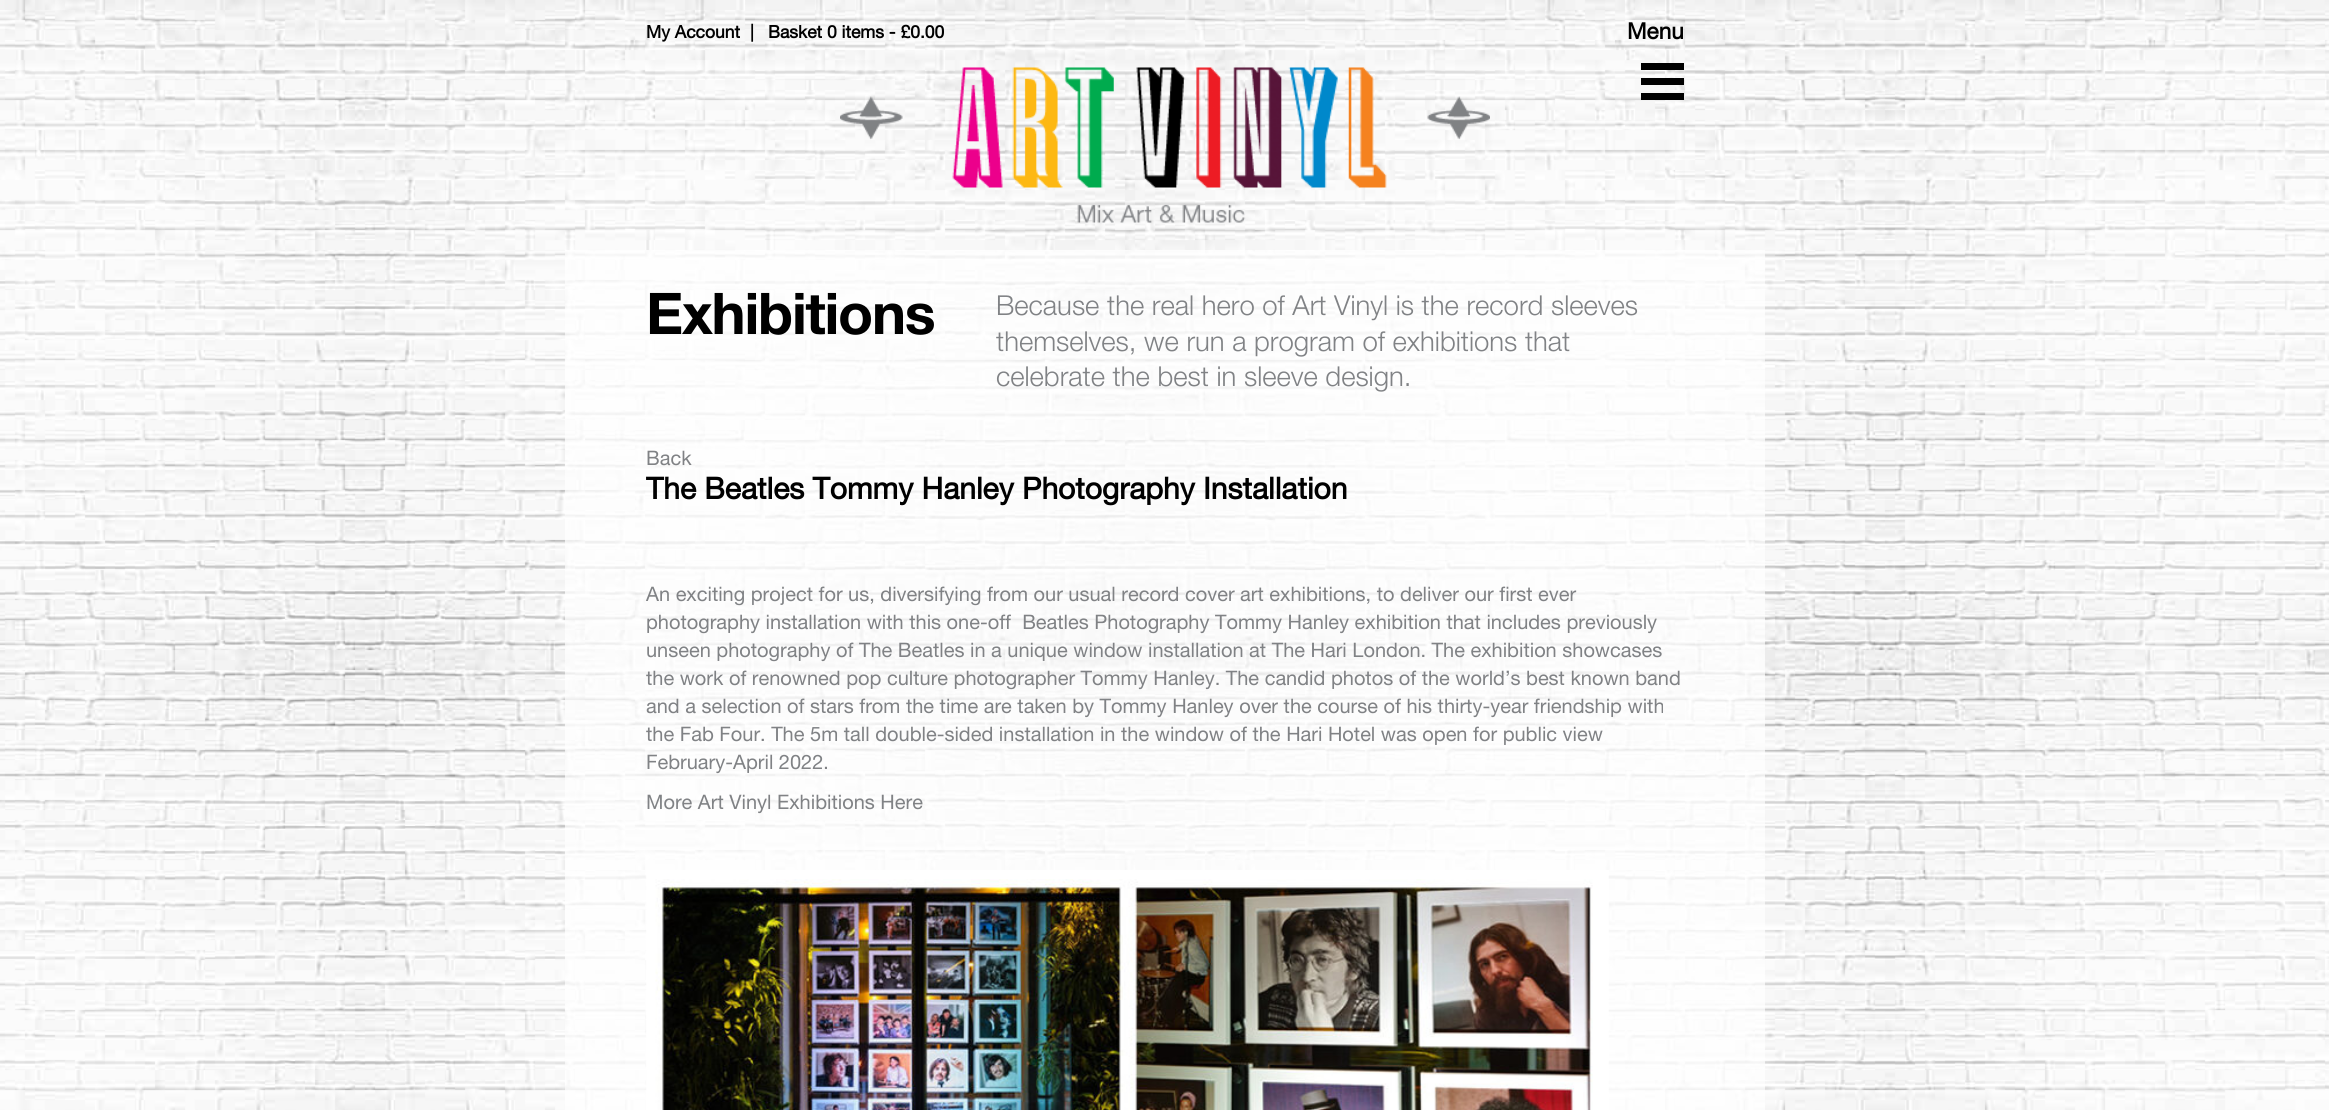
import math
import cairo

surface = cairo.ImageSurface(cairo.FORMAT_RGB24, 2329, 1110)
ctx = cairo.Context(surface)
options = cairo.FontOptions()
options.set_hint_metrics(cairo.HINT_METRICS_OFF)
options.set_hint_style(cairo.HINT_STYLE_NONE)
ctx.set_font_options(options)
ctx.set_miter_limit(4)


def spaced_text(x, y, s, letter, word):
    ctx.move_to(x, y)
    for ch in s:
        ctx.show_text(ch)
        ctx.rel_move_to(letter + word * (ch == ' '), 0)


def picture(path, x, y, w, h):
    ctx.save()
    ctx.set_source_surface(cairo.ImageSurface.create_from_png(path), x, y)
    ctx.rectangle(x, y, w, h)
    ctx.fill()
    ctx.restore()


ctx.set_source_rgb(1, 1, 1)
ctx.paint()
picture("img1.png", 0, 0, 2329, 1110)
ctx.select_font_face("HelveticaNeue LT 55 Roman", cairo.FONT_SLANT_NORMAL, cairo.FONT_WEIGHT_BOLD)
ctx.set_font_size(17.5)
ctx.set_source_rgb(0, 0, 0)
ctx.move_to(646, 38)
ctx.show_text("My Account")
ctx.move_to(750, 38)
ctx.show_text("|")
ctx.move_to(768, 38)
ctx.show_text("Basket 0 items - £0.00")
ctx.set_font_size(22.5)
ctx.move_to(1627, 39)
ctx.show_text("Menu")
ctx.rectangle(1641, 78, 43, 7)
ctx.fill()
ctx.rectangle(1641, 63, 43, 7)
ctx.fill()
ctx.rectangle(1641, 93, 43, 7)
ctx.fill()
picture("img2.png", 840, 67, 650, 156)
ctx.set_source_rgba(1, 1, 1, 0.7)
ctx.rectangle(565, 250, 1200, 860)
ctx.fill()
ctx.select_font_face("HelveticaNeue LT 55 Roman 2", cairo.FONT_SLANT_NORMAL, cairo.FONT_WEIGHT_BOLD)
ctx.set_font_size(57.5)
ctx.set_source_rgb(0, 0, 0)
spaced_text(646, 334, "Exhibitions", -1.25, 0)
ctx.select_font_face("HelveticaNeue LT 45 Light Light")
ctx.set_font_size(27.5)
ctx.set_source_rgb(0.502, 0.51, 0.522)
ctx.move_to(996, 315)
ctx.show_text("Because the real hero of Art Vinyl is the record sleeves")
ctx.move_to(996, 351)
ctx.show_text("themselves, we run a program of exhibitions that")
ctx.move_to(996, 386)
ctx.show_text("celebrate the best in sleeve design.")
ctx.select_font_face("HelveticaNeue LT 55 Roman")
ctx.set_font_size(20)
ctx.move_to(646, 465)
ctx.show_text("Back")
ctx.select_font_face("HelveticaNeue LT 55 Roman", cairo.FONT_SLANT_NORMAL, cairo.FONT_WEIGHT_BOLD)
ctx.set_font_size(30)
ctx.set_source_rgb(0, 0, 0)
ctx.move_to(646, 499)
ctx.show_text("The Beatles Tommy Hanley Photography Installation")
ctx.select_font_face("HelveticaNeue LT 55 Roman")
ctx.set_font_size(20)
ctx.set_source_rgb(0.502, 0.51, 0.522)
ctx.move_to(646, 601)
ctx.show_text("An exciting project for us, diversifying from our usual record cover art exhibitions, to deliver our first ever")
ctx.move_to(646, 629)
ctx.show_text("photography installation with this one-off  Beatles Photography Tommy Hanley exhibition that includes previously")
ctx.move_to(646, 657)
ctx.show_text("unseen photography of The Beatles in a unique window installation at The Hari London. The exhibition showcases")
ctx.move_to(646, 685)
ctx.show_text("the work of renowned pop culture photographer Tommy Hanley. The candid photos of the world’s best known band")
ctx.move_to(646, 713)
ctx.show_text("and a selection of stars from the time are taken by Tommy Hanley over the course of his thirty-year friendship with")
ctx.move_to(646, 741)
ctx.show_text("the Fab Four. The 5m tall double-sided installation in the window of the Hari Hotel was open for public view")
ctx.move_to(646, 769)
ctx.show_text("February-April 2022.")
ctx.move_to(646, 809)
ctx.show_text("More Art Vinyl Exhibitions Here")
picture("img3.png", 646, 870, 963, 240)
surface.write_to_png("page.png")
